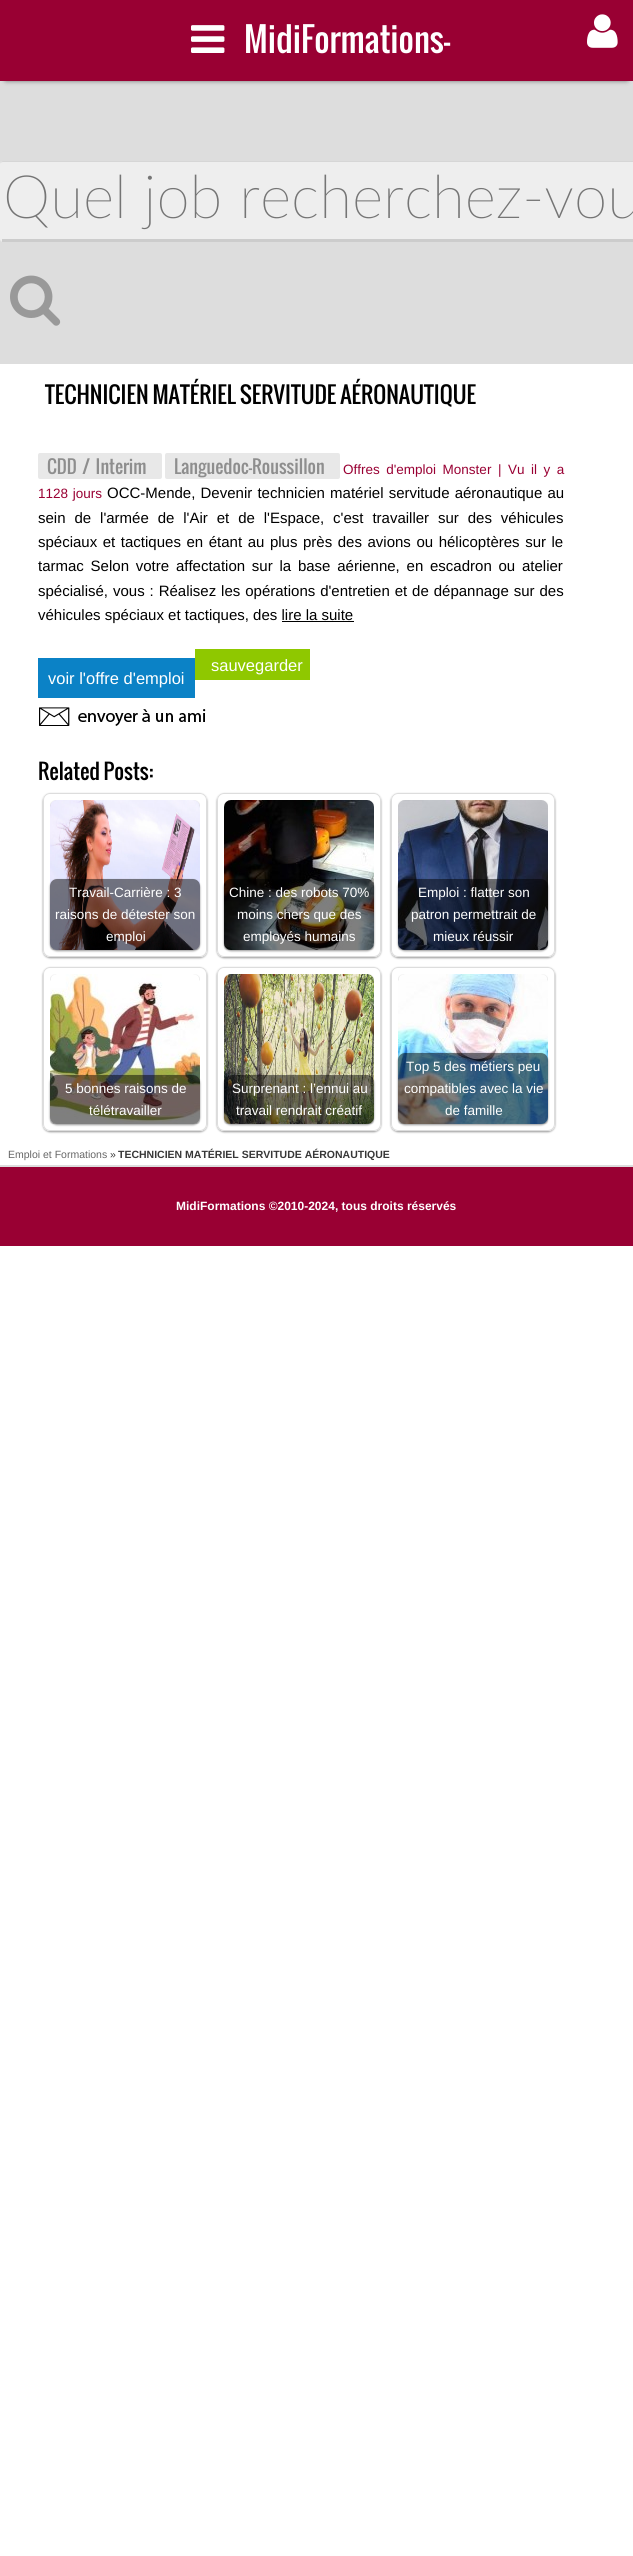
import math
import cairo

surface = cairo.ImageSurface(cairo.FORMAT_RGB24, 633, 2556)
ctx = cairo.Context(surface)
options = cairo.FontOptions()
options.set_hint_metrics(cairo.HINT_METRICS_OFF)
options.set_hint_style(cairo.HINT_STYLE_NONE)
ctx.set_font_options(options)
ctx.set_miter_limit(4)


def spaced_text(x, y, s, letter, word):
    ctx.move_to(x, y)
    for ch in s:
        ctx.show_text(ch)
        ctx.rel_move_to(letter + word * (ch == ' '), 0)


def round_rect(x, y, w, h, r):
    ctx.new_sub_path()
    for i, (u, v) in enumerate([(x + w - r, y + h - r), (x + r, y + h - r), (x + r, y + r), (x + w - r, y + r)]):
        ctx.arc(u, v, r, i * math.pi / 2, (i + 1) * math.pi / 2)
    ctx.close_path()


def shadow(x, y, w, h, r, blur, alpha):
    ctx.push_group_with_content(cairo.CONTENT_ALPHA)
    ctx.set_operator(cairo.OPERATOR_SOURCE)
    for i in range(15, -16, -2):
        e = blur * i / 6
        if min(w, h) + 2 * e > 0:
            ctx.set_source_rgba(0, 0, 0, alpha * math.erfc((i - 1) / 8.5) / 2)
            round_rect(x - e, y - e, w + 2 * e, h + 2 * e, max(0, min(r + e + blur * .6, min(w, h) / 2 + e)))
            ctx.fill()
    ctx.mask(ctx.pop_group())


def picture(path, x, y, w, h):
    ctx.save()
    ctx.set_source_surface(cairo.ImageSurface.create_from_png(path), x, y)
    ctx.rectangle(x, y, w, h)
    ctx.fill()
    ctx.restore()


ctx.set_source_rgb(1, 1, 1)
ctx.paint()
ctx.set_source_rgb(0.867, 0.867, 0.867)
ctx.rectangle(0, 81, 633, 283)
ctx.fill()
ctx.set_source_rgb(0, 0, 0)
shadow(6, 10, 621, 69, 0, 3, 1)
ctx.set_source_rgb(0.6, 0, 0.2)
ctx.rectangle(0, 0, 633, 81)
ctx.fill()
picture("img1.png", 191, 25, 34, 28)
ctx.select_font_face("Oswald")
ctx.set_font_size(33)
ctx.set_source_rgb(1, 1, 1)
ctx.move_to(244, 53)
ctx.show_text("MidiFormations-")
picture("img2.png", 587, 14, 31, 34)
ctx.set_source_rgb(0.933, 0.933, 0.933)
round_rect(0, 161, 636, 81, 3)
ctx.fill()
ctx.set_source_rgb(0.839, 0.839, 0.839)
ctx.new_path()
ctx.move_to(3, 162)
ctx.line_to(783, 162)
ctx.curve_to(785, 162, 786, 163, 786, 165)
ctx.curve_to(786, 163, 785, 161, 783, 161)
ctx.line_to(3, 161)
ctx.curve_to(1, 161, 0, 163, 0, 165)
ctx.curve_to(0, 163, 1, 162, 3, 162)
ctx.close_path()
ctx.fill()
ctx.set_source_rgb(0.8, 0.8, 0.8)
ctx.rectangle(2, 239, 631, 3)
ctx.fill()
ctx.select_font_face("Lato Thin")
ctx.set_font_size(60)
ctx.set_source_rgb(0.459, 0.459, 0.459)
ctx.move_to(3, 218)
ctx.show_text("Quel job recherchez-vou")
picture("img3.png", 10, 275, 51, 51)
ctx.select_font_face("Oswald")
ctx.set_font_size(22.5)
ctx.set_source_rgb(0, 0, 0)
ctx.move_to(45, 404)
ctx.show_text("TECHNICIEN MATÉRIEL SERVITUDE AÉRONAUTIQUE")
ctx.set_source_rgb(0.91, 0.91, 0.91)
round_rect(38, 453, 124, 26, 2)
ctx.fill()
ctx.set_font_size(18)
ctx.set_source_rgb(0.557, 0.557, 0.557)
spaced_text(47, 474, "CDD / Interim", 0, 2.75)
ctx.set_source_rgb(0.91, 0.91, 0.91)
round_rect(165, 453, 175, 26, 2)
ctx.fill()
ctx.set_source_rgb(0.557, 0.557, 0.557)
ctx.move_to(174, 474)
ctx.show_text("Languedoc-Roussillon")
ctx.select_font_face("Liberation Sans")
ctx.set_font_size(13.5)
ctx.set_source_rgb(0.6, 0, 0.2)
spaced_text(343, 474, "Offres d'emploi Monster | Vu il y a", 0, 2.75)
spaced_text(38, 498, "1128 jours", 0, 1)
ctx.set_font_size(15)
ctx.set_source_rgb(0, 0, 0)
spaced_text(107, 498, "OCC-Mende, Devenir technicien matériel servitude aéronautique au", 0, 1)
spaced_text(38, 523, "sein de l'armée de l'Air et de l'Espace, c'est travailler sur des véhicules", 0, 4.75)
spaced_text(38, 547, "spéciaux et tactiques en étant au plus près des avions ou hélicoptères sur le", 0, 1.4)
spaced_text(38, 571, "tarmac Selon votre affectation sur la base aérienne, en escadron ou atelier", 0, 2.6)
spaced_text(38, 596, "spécialisé, vous : Réalisez les opérations d'entretien et de dépannage sur des", 0, 0.75)
ctx.move_to(38, 620)
ctx.show_text("véhicules spéciaux et tactiques, des lire la suite")
ctx.rectangle(282, 621, 72, 1)
ctx.fill()
ctx.set_source_rgb(0.561, 0.784, 0)
ctx.rectangle(195, 649, 115, 31)
ctx.fill()
ctx.set_font_size(16.5)
ctx.set_source_rgb(1, 1, 1)
ctx.move_to(211, 671)
ctx.show_text("sauvegarder")
ctx.set_source_rgb(0.043, 0.51, 0.776)
ctx.rectangle(38, 658, 157, 40)
ctx.fill()
ctx.set_source_rgb(1, 1, 1)
ctx.move_to(48, 684)
ctx.show_text("voir l'offre d'emploi")
picture("img4.png", 39, 707, 167, 19)
ctx.select_font_face("Oswald")
ctx.set_font_size(21)
ctx.set_source_rgb(0, 0, 0)
ctx.move_to(38, 780)
ctx.show_text("Related Posts:")
ctx.save()
ctx.set_fill_rule(cairo.FILL_RULE_EVEN_ODD)
ctx.new_path()
ctx.move_to(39, 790)
ctx.line_to(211, 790)
ctx.line_to(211, 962)
ctx.line_to(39, 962)
ctx.close_path()
ctx.move_to(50, 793)
ctx.line_to(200, 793)
ctx.curve_to(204, 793, 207, 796, 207, 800)
ctx.line_to(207, 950)
ctx.curve_to(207, 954, 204, 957, 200, 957)
ctx.line_to(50, 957)
ctx.curve_to(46, 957, 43, 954, 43, 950)
ctx.line_to(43, 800)
ctx.curve_to(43, 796, 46, 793, 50, 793)
ctx.close_path()
ctx.clip()
ctx.set_source_rgb(0, 0, 0)
shadow(43, 794, 164, 164, 7, 1, 0.4)
ctx.restore()
round_rect(43.5, 793.5, 163, 163, 6.5)
ctx.set_source_rgb(0.867, 0.867, 0.867)
ctx.set_line_width(1)
ctx.stroke()
ctx.save()
ctx.rectangle(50, 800, 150, 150)
ctx.clip()
ctx.set_source_rgb(0, 0, 0)
shadow(50, 801, 150, 150, 7, 1, 0.4)
ctx.restore()
picture("img5.png", 50, 800, 150, 150)
ctx.save()
ctx.set_fill_rule(cairo.FILL_RULE_EVEN_ODD)
ctx.new_path()
ctx.move_to(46, 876)
ctx.line_to(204, 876)
ctx.line_to(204, 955)
ctx.line_to(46, 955)
ctx.close_path()
ctx.move_to(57, 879)
ctx.line_to(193, 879)
ctx.curve_to(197, 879, 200, 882, 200, 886)
ctx.line_to(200, 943)
ctx.curve_to(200, 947, 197, 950, 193, 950)
ctx.line_to(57, 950)
ctx.curve_to(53, 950, 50, 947, 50, 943)
ctx.line_to(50, 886)
ctx.curve_to(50, 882, 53, 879, 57, 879)
ctx.close_path()
ctx.clip()
ctx.set_source_rgb(0, 0, 0)
shadow(50, 880, 150, 71, 7, 1, 0.4)
ctx.restore()
ctx.set_source_rgba(0, 0, 0, 0.5)
round_rect(50, 879, 150, 71, 7)
ctx.fill()
ctx.select_font_face("Liberation Sans")
ctx.set_font_size(13.5)
ctx.set_source_rgb(1, 1, 1)
ctx.move_to(69, 897)
ctx.show_text("Travail-Carrière : 3")
ctx.move_to(55, 919)
ctx.show_text("raisons de détester son")
ctx.move_to(106, 941)
ctx.show_text("emploi")
ctx.save()
ctx.set_fill_rule(cairo.FILL_RULE_EVEN_ODD)
ctx.new_path()
ctx.move_to(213, 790)
ctx.line_to(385, 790)
ctx.line_to(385, 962)
ctx.line_to(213, 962)
ctx.close_path()
ctx.move_to(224, 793)
ctx.line_to(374, 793)
ctx.curve_to(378, 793, 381, 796, 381, 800)
ctx.line_to(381, 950)
ctx.curve_to(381, 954, 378, 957, 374, 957)
ctx.line_to(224, 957)
ctx.curve_to(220, 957, 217, 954, 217, 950)
ctx.line_to(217, 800)
ctx.curve_to(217, 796, 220, 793, 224, 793)
ctx.close_path()
ctx.clip()
ctx.set_source_rgb(0, 0, 0)
shadow(217, 794, 164, 164, 7, 1, 0.4)
ctx.restore()
round_rect(217.5, 793.5, 163, 163, 6.5)
ctx.set_source_rgb(0.867, 0.867, 0.867)
ctx.stroke()
ctx.save()
ctx.rectangle(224, 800, 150, 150)
ctx.clip()
ctx.set_source_rgb(0, 0, 0)
shadow(224, 801, 150, 150, 7, 1, 0.4)
ctx.restore()
picture("img6.png", 224, 800, 150, 150)
ctx.save()
ctx.set_fill_rule(cairo.FILL_RULE_EVEN_ODD)
ctx.new_path()
ctx.move_to(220, 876)
ctx.line_to(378, 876)
ctx.line_to(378, 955)
ctx.line_to(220, 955)
ctx.close_path()
ctx.move_to(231, 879)
ctx.line_to(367, 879)
ctx.curve_to(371, 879, 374, 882, 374, 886)
ctx.line_to(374, 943)
ctx.curve_to(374, 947, 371, 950, 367, 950)
ctx.line_to(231, 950)
ctx.curve_to(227, 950, 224, 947, 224, 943)
ctx.line_to(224, 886)
ctx.curve_to(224, 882, 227, 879, 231, 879)
ctx.close_path()
ctx.clip()
ctx.set_source_rgb(0, 0, 0)
shadow(224, 880, 150, 71, 7, 1, 0.4)
ctx.restore()
ctx.set_source_rgba(0, 0, 0, 0.5)
round_rect(224, 879, 150, 71, 7)
ctx.fill()
ctx.set_source_rgb(1, 1, 1)
ctx.move_to(229, 897)
ctx.show_text("Chine : des robots 70%")
ctx.move_to(237, 919)
ctx.show_text("moins chers que des")
ctx.move_to(243, 941)
ctx.show_text("employés humains")
ctx.save()
ctx.set_fill_rule(cairo.FILL_RULE_EVEN_ODD)
ctx.new_path()
ctx.move_to(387, 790)
ctx.line_to(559, 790)
ctx.line_to(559, 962)
ctx.line_to(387, 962)
ctx.close_path()
ctx.move_to(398, 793)
ctx.line_to(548, 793)
ctx.curve_to(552, 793, 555, 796, 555, 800)
ctx.line_to(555, 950)
ctx.curve_to(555, 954, 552, 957, 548, 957)
ctx.line_to(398, 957)
ctx.curve_to(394, 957, 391, 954, 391, 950)
ctx.line_to(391, 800)
ctx.curve_to(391, 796, 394, 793, 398, 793)
ctx.close_path()
ctx.clip()
ctx.set_source_rgb(0, 0, 0)
shadow(391, 794, 164, 164, 7, 1, 0.4)
ctx.restore()
round_rect(391.5, 793.5, 163, 163, 6.5)
ctx.set_source_rgb(0.867, 0.867, 0.867)
ctx.stroke()
ctx.save()
ctx.rectangle(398, 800, 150, 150)
ctx.clip()
ctx.set_source_rgb(0, 0, 0)
shadow(398, 801, 150, 150, 7, 1, 0.4)
ctx.restore()
picture("img7.png", 398, 800, 150, 150)
ctx.save()
ctx.set_fill_rule(cairo.FILL_RULE_EVEN_ODD)
ctx.new_path()
ctx.move_to(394, 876)
ctx.line_to(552, 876)
ctx.line_to(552, 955)
ctx.line_to(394, 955)
ctx.close_path()
ctx.move_to(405, 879)
ctx.line_to(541, 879)
ctx.curve_to(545, 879, 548, 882, 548, 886)
ctx.line_to(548, 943)
ctx.curve_to(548, 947, 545, 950, 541, 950)
ctx.line_to(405, 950)
ctx.curve_to(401, 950, 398, 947, 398, 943)
ctx.line_to(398, 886)
ctx.curve_to(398, 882, 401, 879, 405, 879)
ctx.close_path()
ctx.clip()
ctx.set_source_rgb(0, 0, 0)
shadow(398, 880, 150, 71, 7, 1, 0.4)
ctx.restore()
ctx.set_source_rgba(0, 0, 0, 0.5)
round_rect(398, 879, 150, 71, 7)
ctx.fill()
ctx.set_source_rgb(1, 1, 1)
ctx.move_to(418, 897)
ctx.show_text("Emploi : flatter son")
ctx.move_to(411, 919)
ctx.show_text("patron permettrait de")
ctx.move_to(433, 941)
ctx.show_text("mieux réussir")
ctx.save()
ctx.set_fill_rule(cairo.FILL_RULE_EVEN_ODD)
ctx.new_path()
ctx.move_to(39, 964)
ctx.line_to(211, 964)
ctx.line_to(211, 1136)
ctx.line_to(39, 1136)
ctx.close_path()
ctx.move_to(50, 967)
ctx.line_to(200, 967)
ctx.curve_to(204, 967, 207, 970, 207, 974)
ctx.line_to(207, 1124)
ctx.curve_to(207, 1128, 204, 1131, 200, 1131)
ctx.line_to(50, 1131)
ctx.curve_to(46, 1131, 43, 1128, 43, 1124)
ctx.line_to(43, 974)
ctx.curve_to(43, 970, 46, 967, 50, 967)
ctx.close_path()
ctx.clip()
ctx.set_source_rgb(0, 0, 0)
shadow(43, 968, 164, 164, 7, 1, 0.4)
ctx.restore()
round_rect(43.5, 967.5, 163, 163, 6.5)
ctx.set_source_rgb(0.867, 0.867, 0.867)
ctx.stroke()
ctx.save()
ctx.rectangle(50, 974, 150, 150)
ctx.clip()
ctx.set_source_rgb(0, 0, 0)
shadow(50, 975, 150, 150, 7, 1, 0.4)
ctx.restore()
picture("img8.png", 50, 974, 150, 150)
ctx.save()
ctx.set_fill_rule(cairo.FILL_RULE_EVEN_ODD)
ctx.new_path()
ctx.move_to(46, 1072)
ctx.line_to(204, 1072)
ctx.line_to(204, 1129)
ctx.line_to(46, 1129)
ctx.close_path()
ctx.move_to(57, 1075)
ctx.line_to(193, 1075)
ctx.curve_to(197, 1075, 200, 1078, 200, 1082)
ctx.line_to(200, 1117)
ctx.curve_to(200, 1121, 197, 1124, 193, 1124)
ctx.line_to(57, 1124)
ctx.curve_to(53, 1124, 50, 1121, 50, 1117)
ctx.line_to(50, 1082)
ctx.curve_to(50, 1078, 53, 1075, 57, 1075)
ctx.close_path()
ctx.clip()
ctx.set_source_rgb(0, 0, 0)
shadow(50, 1076, 150, 49, 7, 1, 0.4)
ctx.restore()
ctx.set_source_rgba(0, 0, 0, 0.5)
round_rect(50, 1075, 150, 49, 7)
ctx.fill()
ctx.set_source_rgb(1, 1, 1)
ctx.move_to(65, 1093)
ctx.show_text("5 bonnes raisons de")
ctx.move_to(89, 1115)
ctx.show_text("télétravailler")
ctx.save()
ctx.set_fill_rule(cairo.FILL_RULE_EVEN_ODD)
ctx.new_path()
ctx.move_to(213, 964)
ctx.line_to(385, 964)
ctx.line_to(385, 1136)
ctx.line_to(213, 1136)
ctx.close_path()
ctx.move_to(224, 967)
ctx.line_to(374, 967)
ctx.curve_to(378, 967, 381, 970, 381, 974)
ctx.line_to(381, 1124)
ctx.curve_to(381, 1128, 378, 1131, 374, 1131)
ctx.line_to(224, 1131)
ctx.curve_to(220, 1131, 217, 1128, 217, 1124)
ctx.line_to(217, 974)
ctx.curve_to(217, 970, 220, 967, 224, 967)
ctx.close_path()
ctx.clip()
ctx.set_source_rgb(0, 0, 0)
shadow(217, 968, 164, 164, 7, 1, 0.4)
ctx.restore()
round_rect(217.5, 967.5, 163, 163, 6.5)
ctx.set_source_rgb(0.867, 0.867, 0.867)
ctx.stroke()
ctx.save()
ctx.rectangle(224, 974, 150, 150)
ctx.clip()
ctx.set_source_rgb(0, 0, 0)
shadow(224, 975, 150, 150, 7, 1, 0.4)
ctx.restore()
picture("img9.png", 224, 974, 150, 150)
ctx.save()
ctx.set_fill_rule(cairo.FILL_RULE_EVEN_ODD)
ctx.new_path()
ctx.move_to(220, 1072)
ctx.line_to(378, 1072)
ctx.line_to(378, 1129)
ctx.line_to(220, 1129)
ctx.close_path()
ctx.move_to(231, 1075)
ctx.line_to(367, 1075)
ctx.curve_to(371, 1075, 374, 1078, 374, 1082)
ctx.line_to(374, 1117)
ctx.curve_to(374, 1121, 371, 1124, 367, 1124)
ctx.line_to(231, 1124)
ctx.curve_to(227, 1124, 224, 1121, 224, 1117)
ctx.line_to(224, 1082)
ctx.curve_to(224, 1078, 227, 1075, 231, 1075)
ctx.close_path()
ctx.clip()
ctx.set_source_rgb(0, 0, 0)
shadow(224, 1076, 150, 49, 7, 1, 0.4)
ctx.restore()
ctx.set_source_rgba(0, 0, 0, 0.5)
round_rect(224, 1075, 150, 49, 7)
ctx.fill()
ctx.set_source_rgb(1, 1, 1)
ctx.move_to(232, 1093)
ctx.show_text("Surprenant : l’ennui au")
ctx.move_to(236, 1115)
ctx.show_text("travail rendrait créatif")
ctx.save()
ctx.set_fill_rule(cairo.FILL_RULE_EVEN_ODD)
ctx.new_path()
ctx.move_to(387, 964)
ctx.line_to(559, 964)
ctx.line_to(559, 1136)
ctx.line_to(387, 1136)
ctx.close_path()
ctx.move_to(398, 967)
ctx.line_to(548, 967)
ctx.curve_to(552, 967, 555, 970, 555, 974)
ctx.line_to(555, 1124)
ctx.curve_to(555, 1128, 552, 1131, 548, 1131)
ctx.line_to(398, 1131)
ctx.curve_to(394, 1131, 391, 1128, 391, 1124)
ctx.line_to(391, 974)
ctx.curve_to(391, 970, 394, 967, 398, 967)
ctx.close_path()
ctx.clip()
ctx.set_source_rgb(0, 0, 0)
shadow(391, 968, 164, 164, 7, 1, 0.4)
ctx.restore()
round_rect(391.5, 967.5, 163, 163, 6.5)
ctx.set_source_rgb(0.867, 0.867, 0.867)
ctx.stroke()
ctx.save()
ctx.rectangle(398, 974, 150, 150)
ctx.clip()
ctx.set_source_rgb(0, 0, 0)
shadow(398, 975, 150, 150, 7, 1, 0.4)
ctx.restore()
picture("img10.png", 398, 974, 150, 150)
ctx.save()
ctx.set_fill_rule(cairo.FILL_RULE_EVEN_ODD)
ctx.new_path()
ctx.move_to(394, 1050)
ctx.line_to(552, 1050)
ctx.line_to(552, 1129)
ctx.line_to(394, 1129)
ctx.close_path()
ctx.move_to(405, 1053)
ctx.line_to(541, 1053)
ctx.curve_to(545, 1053, 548, 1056, 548, 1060)
ctx.line_to(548, 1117)
ctx.curve_to(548, 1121, 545, 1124, 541, 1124)
ctx.line_to(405, 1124)
ctx.curve_to(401, 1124, 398, 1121, 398, 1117)
ctx.line_to(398, 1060)
ctx.curve_to(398, 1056, 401, 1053, 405, 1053)
ctx.close_path()
ctx.clip()
ctx.set_source_rgb(0, 0, 0)
shadow(398, 1054, 150, 71, 7, 1, 0.4)
ctx.restore()
ctx.set_source_rgba(0, 0, 0, 0.5)
round_rect(398, 1053, 150, 71, 7)
ctx.fill()
ctx.set_source_rgb(1, 1, 1)
ctx.move_to(406, 1071)
ctx.show_text("Top 5 des métiers peu")
ctx.move_to(404, 1093)
ctx.show_text("compatibles avec la vie")
ctx.move_to(445, 1115)
ctx.show_text("de famille")
ctx.set_font_size(10.5)
ctx.set_source_rgb(0.4, 0.4, 0.4)
ctx.move_to(8, 1158)
ctx.show_text("Emploi et Formations")
ctx.set_source_rgb(0.216, 0.216, 0.216)
ctx.move_to(110, 1158)
ctx.show_text("»")
ctx.select_font_face("Liberation Sans", cairo.FONT_SLANT_NORMAL, cairo.FONT_WEIGHT_BOLD)
ctx.move_to(118, 1158)
ctx.show_text("TECHNICIEN MATÉRIEL SERVITUDE AÉRONAUTIQUE")
ctx.set_source_rgb(0.6, 0, 0.2)
ctx.rectangle(0, 1167, 633, 79)
ctx.fill()
ctx.set_source_rgb(0.867, 0.867, 0.867)
ctx.rectangle(0, 1165, 633, 2)
ctx.fill()
ctx.set_font_size(12)
ctx.set_source_rgb(1, 1, 1)
ctx.move_to(176, 1210)
ctx.show_text("MidiFormations ©2010-2024, tous droits réservés")
surface.write_to_png("page.png")
